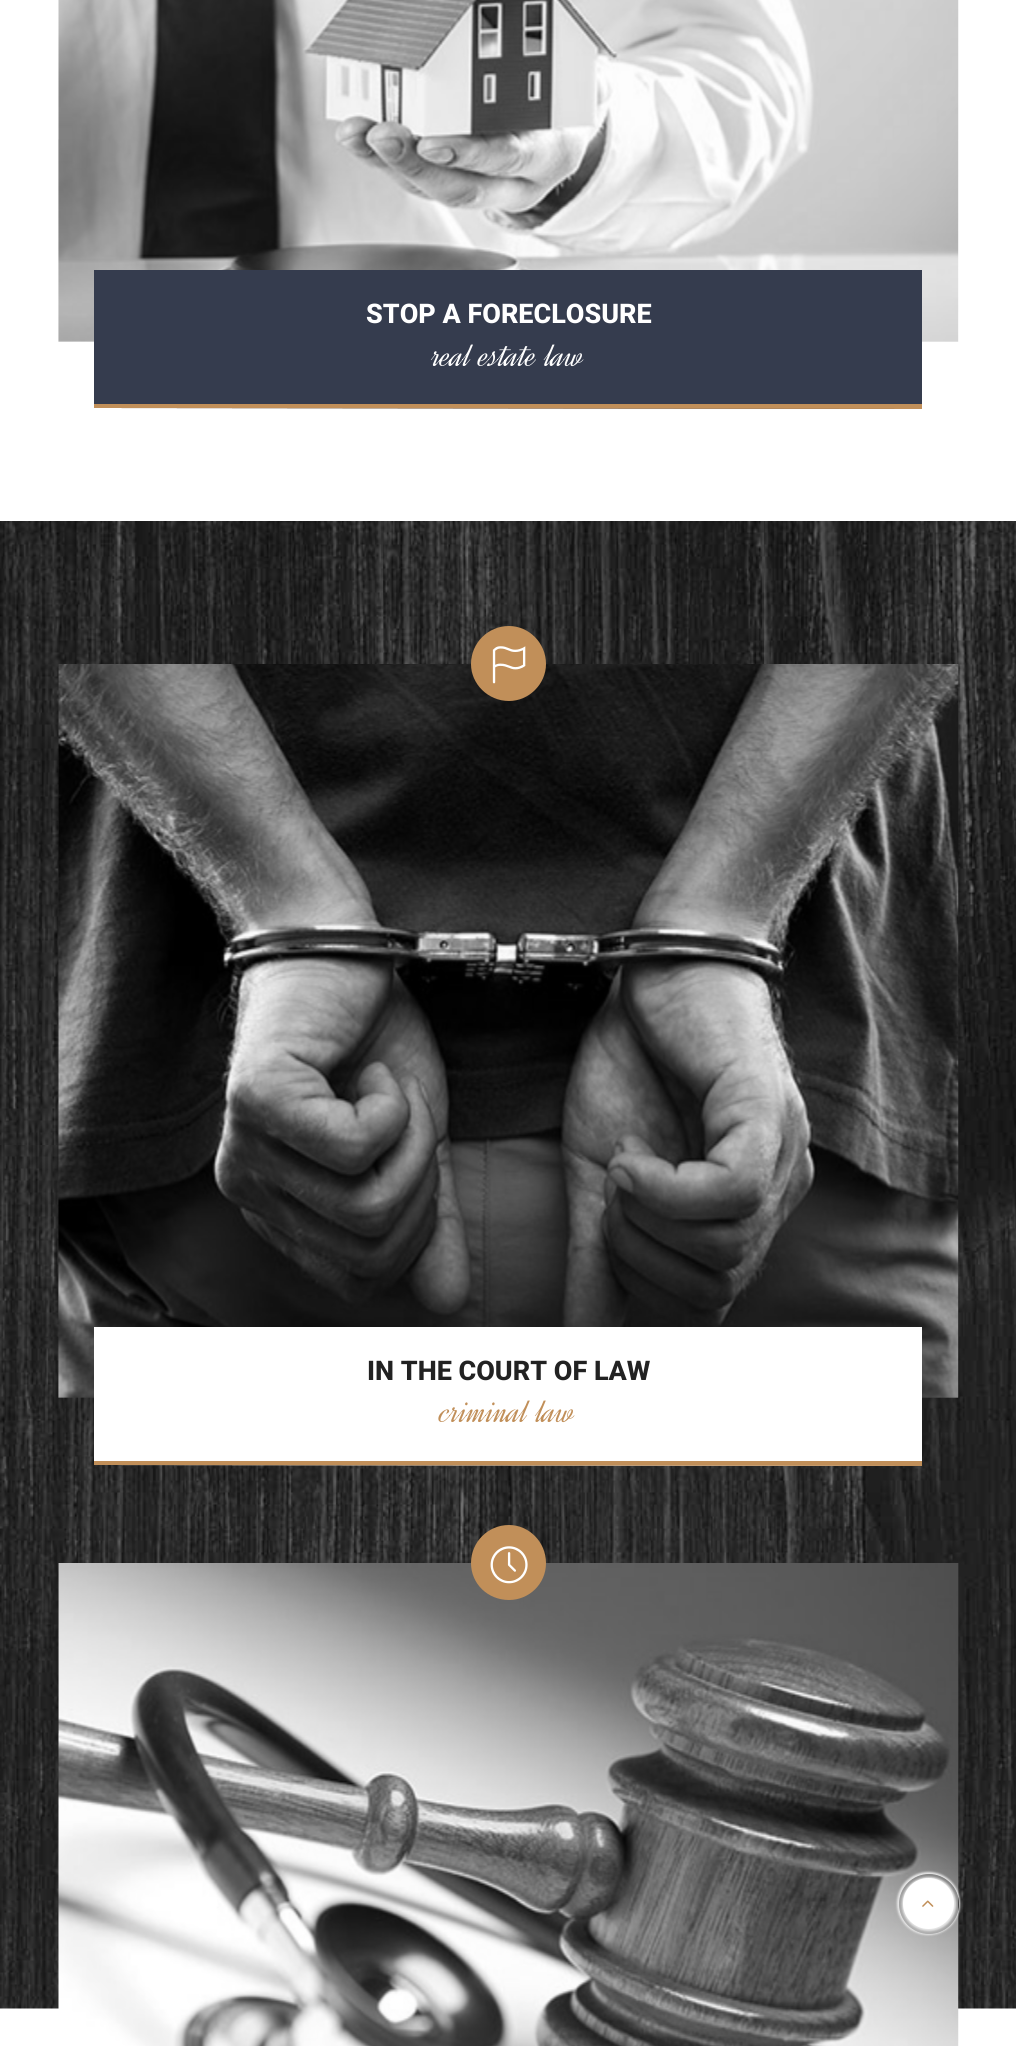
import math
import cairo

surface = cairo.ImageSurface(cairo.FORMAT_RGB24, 1016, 2046)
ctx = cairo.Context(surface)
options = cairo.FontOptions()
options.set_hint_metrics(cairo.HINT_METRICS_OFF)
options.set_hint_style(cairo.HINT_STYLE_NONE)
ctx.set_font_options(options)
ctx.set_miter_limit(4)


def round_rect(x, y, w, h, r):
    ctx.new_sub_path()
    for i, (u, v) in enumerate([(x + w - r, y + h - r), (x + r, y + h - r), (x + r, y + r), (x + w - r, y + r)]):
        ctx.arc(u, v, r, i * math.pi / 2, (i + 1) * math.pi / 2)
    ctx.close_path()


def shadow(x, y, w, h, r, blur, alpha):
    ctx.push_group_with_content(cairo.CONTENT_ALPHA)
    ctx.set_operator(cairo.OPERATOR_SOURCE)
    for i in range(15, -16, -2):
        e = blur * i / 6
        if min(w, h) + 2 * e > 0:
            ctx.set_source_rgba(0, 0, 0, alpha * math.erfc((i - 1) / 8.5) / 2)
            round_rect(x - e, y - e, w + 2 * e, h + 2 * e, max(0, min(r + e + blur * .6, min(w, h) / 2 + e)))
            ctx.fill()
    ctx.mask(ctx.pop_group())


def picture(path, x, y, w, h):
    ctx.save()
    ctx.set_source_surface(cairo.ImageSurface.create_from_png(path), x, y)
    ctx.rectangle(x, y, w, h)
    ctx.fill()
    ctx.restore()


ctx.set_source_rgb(1, 1, 1)
ctx.paint()
picture("img1.png", 58, 0, 901, 342)
ctx.set_source_rgb(0.208, 0.235, 0.306)
ctx.new_path()
ctx.move_to(94, 270)
ctx.line_to(922, 270)
ctx.line_to(922, 409)
ctx.line_to(94, 408)
ctx.close_path()
ctx.fill()
ctx.select_font_face("Roboto ExtraBold")
ctx.set_font_size(27)
ctx.set_source_rgb(1, 1, 1)
ctx.move_to(366, 323)
ctx.show_text("STOP A FORECLOSURE")
ctx.select_font_face("Dynalight Light")
ctx.set_font_size(36)
ctx.move_to(433, 366)
ctx.show_text("real estate law")
ctx.set_source_rgb(0.757, 0.561, 0.349)
ctx.new_path()
ctx.move_to(922, 409)
ctx.line_to(94, 408)
ctx.line_to(94, 404)
ctx.line_to(922, 404)
ctx.close_path()
ctx.fill()
picture("img2.png", 0, 521, 1016, 1488)
picture("img4.png", 58, 664, 901, 734)
ctx.new_path()
ctx.move_to(509, 626)
ctx.curve_to(529, 626, 546, 643, 546, 664)
ctx.curve_to(546, 684, 529, 701, 509, 701)
ctx.curve_to(488, 701, 471, 684, 471, 664)
ctx.curve_to(471, 643, 488, 626, 509, 626)
ctx.close_path()
ctx.fill()
picture("img3.png", 492, 646, 34, 38)
ctx.set_source_rgb(1, 1, 1)
ctx.new_path()
ctx.move_to(94, 1327)
ctx.line_to(922, 1327)
ctx.line_to(922, 1466)
ctx.line_to(94, 1465)
ctx.close_path()
ctx.fill()
ctx.select_font_face("Roboto ExtraBold")
ctx.set_font_size(27)
ctx.set_source_rgb(0.133, 0.133, 0.133)
ctx.move_to(367, 1380)
ctx.show_text("IN THE COURT OF LAW")
ctx.select_font_face("Dynalight Light")
ctx.set_font_size(36)
ctx.set_source_rgb(0.757, 0.561, 0.349)
ctx.move_to(441, 1422)
ctx.show_text("criminal law")
ctx.new_path()
ctx.move_to(922, 1466)
ctx.line_to(94, 1465)
ctx.line_to(94, 1461)
ctx.line_to(922, 1461)
ctx.close_path()
ctx.fill()
picture("img6.png", 58, 1563, 901, 483)
ctx.new_path()
ctx.move_to(509, 1525)
ctx.curve_to(529, 1525, 546, 1542, 546, 1563)
ctx.curve_to(546, 1584, 529, 1600, 509, 1600)
ctx.curve_to(488, 1600, 471, 1584, 471, 1563)
ctx.curve_to(471, 1542, 488, 1525, 509, 1525)
ctx.close_path()
ctx.fill()
picture("img5.png", 490, 1546, 38, 38)
ctx.set_source_rgb(0.906, 0.906, 0.906)
shadow(902, 1877, 54, 54, 27, 1, 1)
ctx.save()
ctx.set_fill_rule(cairo.FILL_RULE_EVEN_ODD)
ctx.new_path()
ctx.move_to(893, 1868)
ctx.line_to(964, 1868)
ctx.line_to(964, 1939)
ctx.line_to(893, 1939)
ctx.close_path()
ctx.move_to(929, 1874)
ctx.curve_to(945.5, 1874, 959, 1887.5, 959, 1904)
ctx.curve_to(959, 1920.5, 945.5, 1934, 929, 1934)
ctx.curve_to(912.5, 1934, 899, 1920.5, 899, 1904)
ctx.curve_to(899, 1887.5, 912.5, 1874, 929, 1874)
ctx.close_path()
ctx.clip()
shadow(897, 1872, 63, 63, 31.5, 1, 1)
ctx.restore()
ctx.set_source_rgb(1, 1, 1)
ctx.arc(928.5, 1903.5, 25.5, 0, 2 * math.pi)
ctx.fill()
picture("img7.png", 922, 1900, 12, 7)
surface.write_to_png("page.png")
